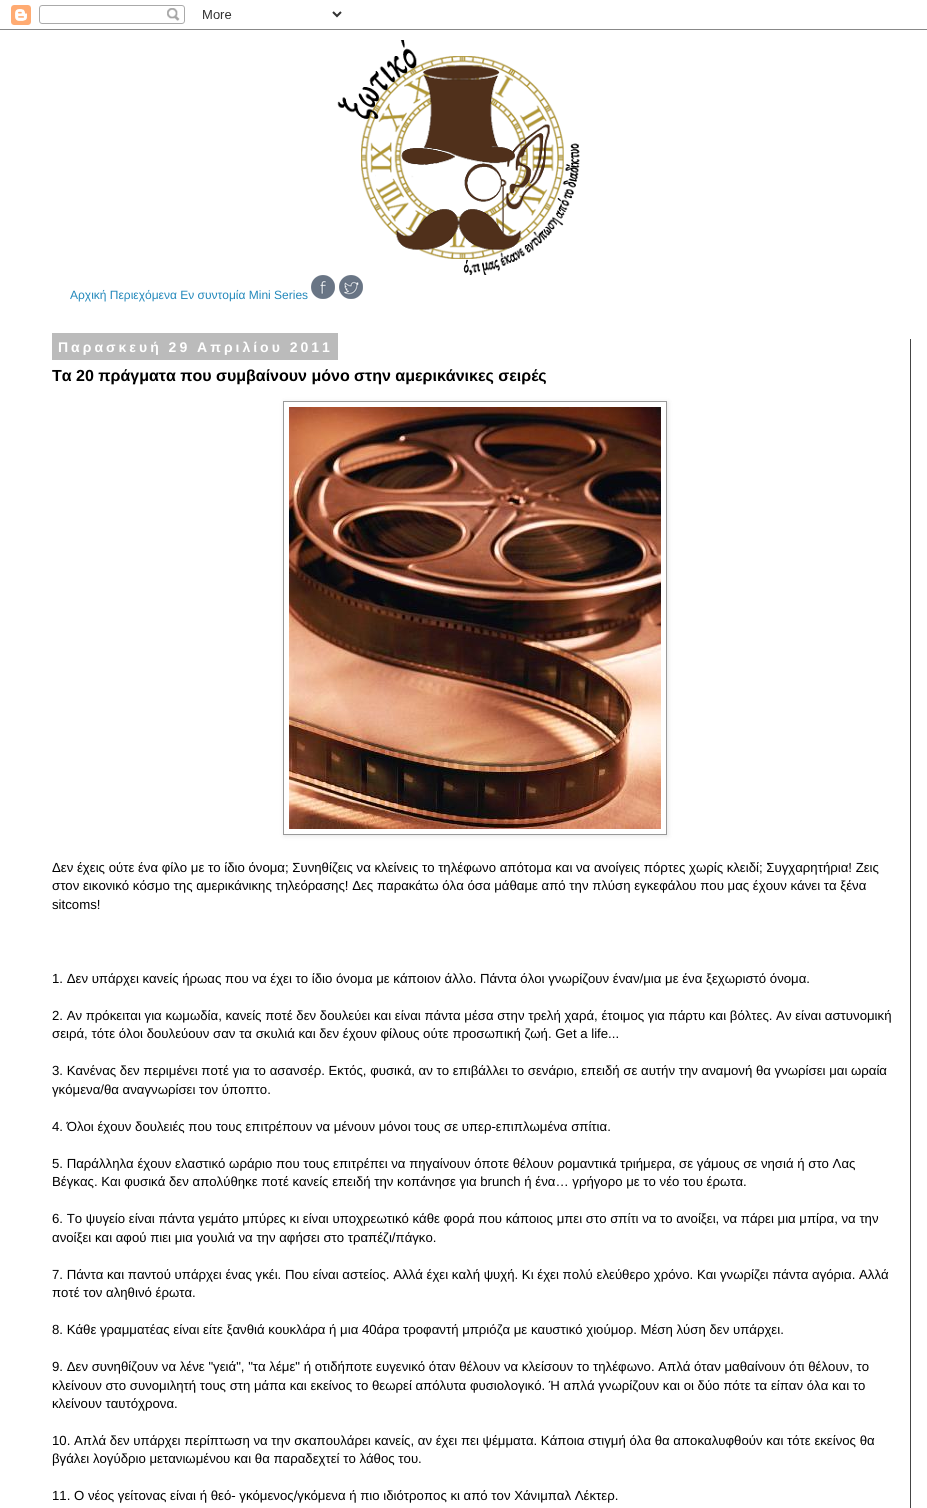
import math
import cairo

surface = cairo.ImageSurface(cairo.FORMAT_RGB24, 927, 1508)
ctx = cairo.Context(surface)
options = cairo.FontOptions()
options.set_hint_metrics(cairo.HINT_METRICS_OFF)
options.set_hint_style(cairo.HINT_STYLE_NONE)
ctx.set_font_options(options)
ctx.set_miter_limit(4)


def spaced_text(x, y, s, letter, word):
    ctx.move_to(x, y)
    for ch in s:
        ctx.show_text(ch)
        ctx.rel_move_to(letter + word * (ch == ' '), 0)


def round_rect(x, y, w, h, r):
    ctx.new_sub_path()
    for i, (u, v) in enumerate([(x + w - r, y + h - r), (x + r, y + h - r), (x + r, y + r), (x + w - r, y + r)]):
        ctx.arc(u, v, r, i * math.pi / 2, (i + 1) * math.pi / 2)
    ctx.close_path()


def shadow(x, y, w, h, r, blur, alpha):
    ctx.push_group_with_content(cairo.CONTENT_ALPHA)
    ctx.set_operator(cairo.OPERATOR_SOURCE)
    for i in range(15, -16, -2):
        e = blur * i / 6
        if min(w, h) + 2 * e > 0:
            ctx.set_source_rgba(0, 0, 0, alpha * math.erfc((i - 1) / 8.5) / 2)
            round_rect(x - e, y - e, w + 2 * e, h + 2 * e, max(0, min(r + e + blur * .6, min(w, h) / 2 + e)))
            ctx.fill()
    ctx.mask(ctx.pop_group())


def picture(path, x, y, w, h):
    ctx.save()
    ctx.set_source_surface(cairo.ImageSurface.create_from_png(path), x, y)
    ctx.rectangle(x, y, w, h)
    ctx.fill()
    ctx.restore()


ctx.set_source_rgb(1, 1, 1)
ctx.paint()
picture("img1.png", 0, 5, 927, 25)
picture("img2.png", 337, 40, 243, 235)
ctx.select_font_face("Liberation Sans")
ctx.set_font_size(12)
ctx.set_source_rgb(0.133, 0.533, 0.733)
ctx.move_to(70, 299)
ctx.show_text("Αρχική Περιεχόμενα Εν συντομία Mini Series")
picture("img3.png", 311, 275, 24, 24)
picture("img4.png", 339, 275, 24, 24)
ctx.set_source_rgb(0.733, 0.733, 0.733)
ctx.rectangle(52, 333, 286, 27)
ctx.fill()
ctx.select_font_face("Liberation Sans", cairo.FONT_SLANT_NORMAL, cairo.FONT_WEIGHT_BOLD)
ctx.set_font_size(14)
ctx.set_source_rgb(1, 1, 1)
spaced_text(58, 352, "Παρασκευή 29 Απριλίου 2011", 3, 0)
ctx.set_font_size(16)
ctx.set_source_rgb(0, 0, 0)
ctx.move_to(52, 381)
ctx.show_text("Tα 20 πράγματα που συμβαίνουν μόνο στην αμερικάνικες σειρές")
ctx.save()
ctx.set_fill_rule(cairo.FILL_RULE_EVEN_ODD)
ctx.new_path()
ctx.move_to(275, 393)
ctx.line_to(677, 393)
ctx.line_to(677, 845)
ctx.line_to(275, 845)
ctx.close_path()
ctx.move_to(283, 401)
ctx.line_to(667, 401)
ctx.line_to(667, 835)
ctx.line_to(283, 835)
ctx.close_path()
ctx.clip()
ctx.set_source_rgb(0, 0, 0)
shadow(284, 402, 384, 434, 0, 2.5, 0.1)
ctx.restore()
ctx.rectangle(283.5, 401.5, 383, 433)
ctx.set_source_rgb(0.6, 0.6, 0.6)
ctx.set_line_width(1)
ctx.stroke()
picture("img5.png", 289, 407, 372, 422)
ctx.select_font_face("Liberation Sans")
ctx.set_font_size(13.2)
ctx.set_source_rgb(0, 0, 0)
ctx.move_to(52, 872)
ctx.show_text("Δεν έχεις ούτε ένα φίλο με το ίδιο όνομα; Συνηθίζεις να κλείνεις το τηλέφωνο απότομα και να ανοίγεις πόρτες χωρίς κλειδί; Συγχαρητήρια! Ζεις")
ctx.move_to(52, 890)
ctx.show_text("στον εικονικό κόσμο της αμερικάνικης τηλεόρασης! Δες παρακάτω όλα όσα μάθαμε από την πλύση εγκεφάλου που μας έχουν κάνει τα ξένα")
ctx.move_to(52, 909)
ctx.show_text("sitcoms!")
ctx.move_to(52, 983)
ctx.show_text("1. Δεν υπάρχει κανείς ήρωας που να έχει το ίδιο όνομα με κάποιον άλλο. Πάντα όλοι γνωρίζουν έναν/μια με ένα ξεχωριστό όνομα.")
ctx.move_to(52, 1020)
ctx.show_text("2. Αν πρόκειται για κωμωδία, κανείς ποτέ δεν δουλεύει και είναι πάντα μέσα στην τρελή χαρά, έτοιμος για πάρτυ και βόλτες. Αν είναι αστυνομική")
ctx.move_to(52, 1038)
ctx.show_text("σειρά, τότε όλοι δουλεύουν σαν τα σκυλιά και δεν έχουν φίλους ούτε προσωπική ζωή. Get a life...")
ctx.move_to(52, 1075)
ctx.show_text("3. Κανένας δεν περιμένει ποτέ για το ασανσέρ. Εκτός, φυσικά, αν το επιβάλλει το σενάριο, επειδή σε αυτήν την αναμονή θα γνωρίσει μαι ωραία")
ctx.move_to(52, 1094)
ctx.show_text("γκόμενα/θα αναγνωρίσει τον ύποπτο.")
ctx.move_to(52, 1131)
ctx.show_text("4. Όλοι έχουν δουλειές που τους επιτρέπουν να μένουν μόνοι τους σε υπερ-επιπλωμένα σπίτια.")
ctx.move_to(52, 1168)
ctx.show_text("5. Παράλληλα έχουν ελαστικό ωράριο που τους επιτρέπει να πηγαίνουν όποτε θέλουν ρομαντικά τριήμερα, σε γάμους σε νησιά ή στο Λας")
ctx.move_to(52, 1186)
ctx.show_text("Βέγκας. Και φυσικά δεν απολύθηκε ποτέ κανείς επειδή την κοπάνησε για brunch ή ένα… γρήγορο με το νέο του έρωτα.")
ctx.move_to(52, 1223)
ctx.show_text("6. Το ψυγείο είναι πάντα γεμάτο μπύρες κι είναι υποχρεωτικό κάθε φορά που κάποιος μπει στο σπίτι να το ανοίξει, να πάρει μια μπίρα, να την")
ctx.move_to(52, 1242)
ctx.show_text("ανοίξει και αφού πιει μια γουλιά να την αφήσει στο τραπέζι/πάγκο.")
ctx.move_to(52, 1279)
ctx.show_text("7. Πάντα και παντού υπάρχει ένας γκέι. Που είναι αστείος. Αλλά έχει καλή ψυχή. Κι έχει πολύ ελεύθερο χρόνο. Και γνωρίζει πάντα αγόρια. Αλλά")
ctx.move_to(52, 1297)
ctx.show_text("ποτέ τον αληθινό έρωτα.")
ctx.move_to(52, 1334)
ctx.show_text("8. Κάθε γραμματέας είναι είτε ξανθιά κουκλάρα ή μια 40άρα τροφαντή μπριόζα με καυστικό χιούμορ. Μέση λύση δεν υπάρχει.")
ctx.move_to(52, 1371)
ctx.show_text("9. Δεν συνηθίζουν να λένε \"γειά\", \"τα λέμε\" ή οτιδήποτε ευγενικό όταν θέλουν να κλείσουν το τηλέφωνο. Απλά όταν μαθαίνουν ότι θέλουν, το")
ctx.move_to(52, 1390)
ctx.show_text("κλείνουν στο συνομιλητή τους στη μάπα και εκείνος το θεωρεί απόλυτα φυσιολογικό. Ή απλά γνωρίζουν και οι δύο πότε τα είπαν όλα και το")
ctx.move_to(52, 1408)
ctx.show_text("κλείνουν ταυτόχρονα.")
ctx.move_to(52, 1445)
ctx.show_text("10. Απλά δεν υπάρχει περίπτωση να την σκαπουλάρει κανείς, αν έχει πει ψέμματα. Κάποια στιγμή όλα θα αποκαλυφθούν και τότε εκείνος θα")
ctx.move_to(52, 1463)
ctx.show_text("βγάλει λογύδριο μετανιωμένου και θα παραδεχτεί το λάθος του.")
ctx.move_to(52, 1500)
ctx.show_text("11. Ο νέος γείτονας είναι ή θεό- γκόμενος/γκόμενα ή πιο ιδιότροπος κι από τον Χάνιμπαλ Λέκτερ.")
ctx.set_source_rgb(0.267, 0.267, 0.267)
ctx.rectangle(910, 339, 1, 1169)
ctx.fill()
surface.write_to_png("page.png")
